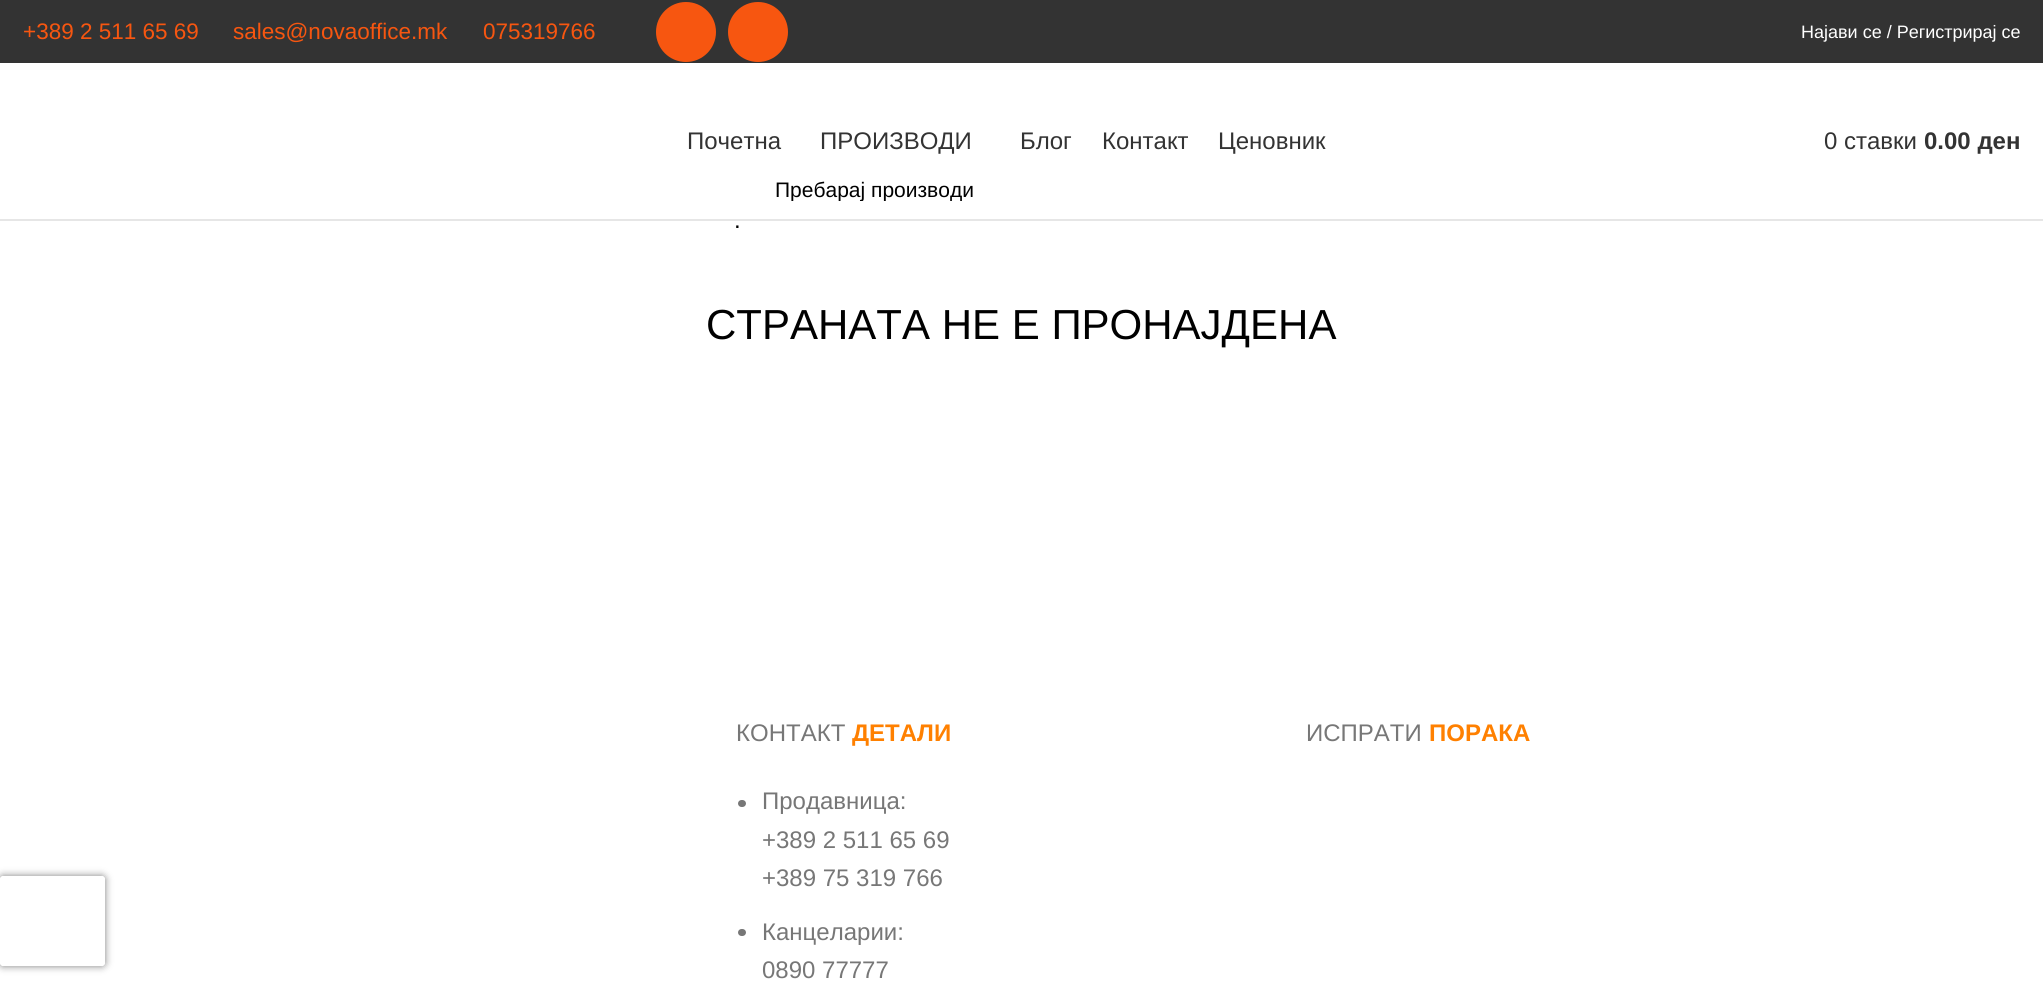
import math
import cairo

surface = cairo.ImageSurface(cairo.FORMAT_RGB24, 2043, 986)
ctx = cairo.Context(surface)
options = cairo.FontOptions()
options.set_hint_metrics(cairo.HINT_METRICS_OFF)
options.set_hint_style(cairo.HINT_STYLE_NONE)
ctx.set_font_options(options)
ctx.set_miter_limit(4)


def round_rect(x, y, w, h, r):
    ctx.new_sub_path()
    for i, (u, v) in enumerate([(x + w - r, y + h - r), (x + r, y + h - r), (x + r, y + r), (x + w - r, y + r)]):
        ctx.arc(u, v, r, i * math.pi / 2, (i + 1) * math.pi / 2)
    ctx.close_path()


def shadow(x, y, w, h, r, blur, alpha):
    ctx.push_group_with_content(cairo.CONTENT_ALPHA)
    ctx.set_operator(cairo.OPERATOR_SOURCE)
    for i in range(15, -16, -2):
        e = blur * i / 6
        if min(w, h) + 2 * e > 0:
            ctx.set_source_rgba(0, 0, 0, alpha * math.erfc((i - 1) / 8.5) / 2)
            round_rect(x - e, y - e, w + 2 * e, h + 2 * e, max(0, min(r + e + blur * .6, min(w, h) / 2 + e)))
            ctx.fill()
    ctx.mask(ctx.pop_group())


ctx.set_source_rgb(1, 1, 1)
ctx.paint()
ctx.set_source_rgb(0.2, 0.2, 0.2)
ctx.rectangle(0, 0, 2043, 63)
ctx.fill()
ctx.select_font_face("Liberation Sans")
ctx.set_font_size(22.5)
ctx.set_source_rgb(0.965, 0.337, 0.063)
ctx.move_to(23, 39)
ctx.show_text("+389 2 511 65 69")
ctx.move_to(233, 39)
ctx.show_text("sales@novaoffice.mk")
ctx.move_to(483, 39)
ctx.show_text("075319766")
ctx.new_path()
ctx.arc(686, 32, 30, 0, 2 * math.pi)
ctx.fill()
ctx.arc(758, 32, 30, 0, 2 * math.pi)
ctx.fill()
ctx.set_font_size(18)
ctx.set_source_rgb(1, 1, 1)
ctx.move_to(1801, 38)
ctx.show_text("Најави се / Регистрирај се")
ctx.set_source_rgb(0.902, 0.902, 0.902)
ctx.rectangle(0, 219, 2043, 2)
ctx.fill()
ctx.set_font_size(24)
ctx.set_source_rgb(0.2, 0.2, 0.2)
ctx.move_to(687, 149)
ctx.show_text("Почетна")
ctx.move_to(820, 149)
ctx.show_text("ПРОИЗВОДИ")
ctx.move_to(1020, 149)
ctx.show_text("Блог")
ctx.move_to(1102, 149)
ctx.show_text("Контакт")
ctx.move_to(1218, 149)
ctx.show_text("Ценовник")
ctx.move_to(1824, 149)
ctx.show_text("0 ставки")
ctx.select_font_face("Liberation Sans", cairo.FONT_SLANT_NORMAL, cairo.FONT_WEIGHT_BOLD)
ctx.move_to(1924, 149)
ctx.show_text("0.00 ден")
ctx.save()
ctx.rectangle(776, 177, 492, 24)
ctx.clip()
ctx.select_font_face("Liberation Sans")
ctx.set_font_size(21)
ctx.set_source_rgb(0, 0, 0)
ctx.move_to(775, 197)
ctx.show_text("Пребарај производи")
ctx.restore()
ctx.select_font_face("Liberation Sans")
ctx.set_font_size(42)
ctx.set_source_rgb(0, 0, 0)
ctx.move_to(706, 339)
ctx.show_text("СТРАНАТА НЕ Е ПРОНАЈДЕНА")
ctx.set_font_size(24)
ctx.set_source_rgb(0.467, 0.467, 0.467)
ctx.move_to(736, 741)
ctx.show_text("КОНТАКТ")
ctx.select_font_face("Liberation Sans", cairo.FONT_SLANT_NORMAL, cairo.FONT_WEIGHT_BOLD)
ctx.set_source_rgb(1, 0.502, 0)
ctx.move_to(852, 741)
ctx.show_text("ДЕТАЛИ")
ctx.set_source_rgb(0.467, 0.467, 0.467)
round_rect(738, 800, 8, 7, 3.5)
ctx.fill()
ctx.select_font_face("Liberation Sans")
ctx.move_to(762, 809)
ctx.show_text("Продавница:")
ctx.move_to(762, 848)
ctx.show_text("+389 2 511 65 69")
ctx.move_to(762, 886)
ctx.show_text("+389 75 319 766")
round_rect(738, 929, 8, 7, 3.5)
ctx.fill()
ctx.move_to(762, 940)
ctx.show_text("Канцеларии:")
ctx.move_to(762, 978)
ctx.show_text("0890 77777")
ctx.move_to(1306, 741)
ctx.show_text("ИСПРАТИ")
ctx.select_font_face("Liberation Sans", cairo.FONT_SLANT_NORMAL, cairo.FONT_WEIGHT_BOLD)
ctx.set_source_rgb(1, 0.502, 0)
ctx.move_to(1429, 741)
ctx.show_text("ПОРАКА")
ctx.select_font_face("Liberation Sans")
ctx.set_source_rgb(0, 0, 0)
ctx.move_to(734, 228)
ctx.show_text(".")
ctx.save()
ctx.set_fill_rule(cairo.FILL_RULE_EVEN_ODD)
ctx.new_path()
ctx.move_to(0, 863)
ctx.line_to(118, 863)
ctx.line_to(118, 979)
ctx.line_to(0, 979)
ctx.close_path()
ctx.move_to(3, 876)
ctx.line_to(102, 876)
ctx.curve_to(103.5, 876, 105, 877.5, 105, 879)
ctx.line_to(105, 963)
ctx.curve_to(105, 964.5, 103.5, 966, 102, 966)
ctx.line_to(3, 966)
ctx.curve_to(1.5, 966, 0, 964.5, 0, 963)
ctx.line_to(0, 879)
ctx.curve_to(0, 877.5, 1.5, 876, 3, 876)
ctx.close_path()
ctx.clip()
ctx.set_source_rgb(0.502, 0.502, 0.502)
shadow(0, 876, 105, 90, 3, 4, 1)
ctx.restore()
surface.write_to_png("page.png")
